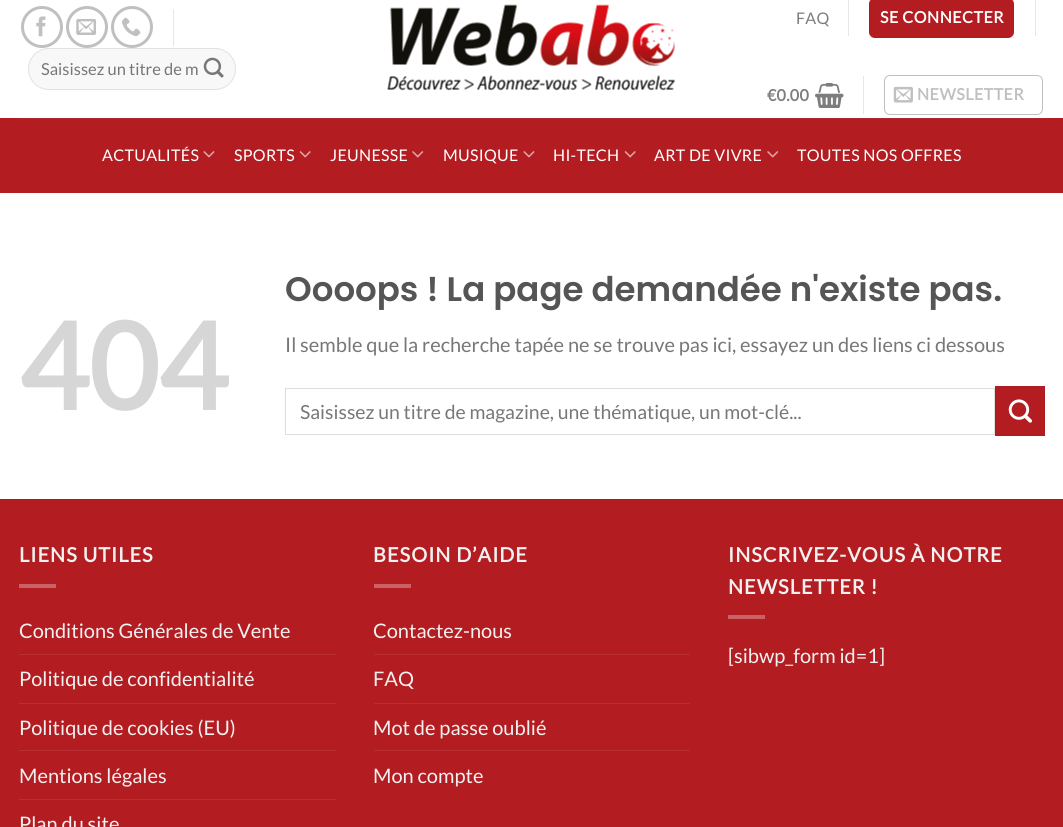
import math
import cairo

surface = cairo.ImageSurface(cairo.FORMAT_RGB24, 1063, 827)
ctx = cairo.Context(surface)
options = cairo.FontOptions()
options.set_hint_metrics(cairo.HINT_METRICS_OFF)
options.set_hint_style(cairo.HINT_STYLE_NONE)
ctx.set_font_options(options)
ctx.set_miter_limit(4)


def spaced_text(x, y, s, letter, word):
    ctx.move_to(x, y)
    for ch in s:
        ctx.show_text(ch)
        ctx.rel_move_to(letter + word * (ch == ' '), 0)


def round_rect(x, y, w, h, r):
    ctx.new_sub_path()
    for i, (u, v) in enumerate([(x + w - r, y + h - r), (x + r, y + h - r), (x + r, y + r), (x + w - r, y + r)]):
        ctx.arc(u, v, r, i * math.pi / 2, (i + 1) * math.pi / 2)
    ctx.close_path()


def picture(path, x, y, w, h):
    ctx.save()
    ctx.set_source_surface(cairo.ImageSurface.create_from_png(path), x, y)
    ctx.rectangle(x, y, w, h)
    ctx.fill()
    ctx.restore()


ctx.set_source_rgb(1, 1, 1)
ctx.paint()
ctx.arc(42, 27, 19.5, 0, 2 * math.pi)
ctx.set_source_rgb(0.753, 0.753, 0.753)
ctx.set_line_width(3)
ctx.stroke()
picture("img1.png", 36, 16, 10, 21)
ctx.arc(87, 27, 19.5, 0, 2 * math.pi)
ctx.stroke()
picture("img2.png", 76, 18, 20, 17)
ctx.arc(132, 27, 19.5, 0, 2 * math.pi)
ctx.stroke()
picture("img3.png", 121, 17, 20, 20)
ctx.set_source_rgb(0.902, 0.902, 0.902)
ctx.rectangle(173, 9, 1, 37)
ctx.fill()
ctx.set_source_rgb(0.969, 0.969, 0.969)
round_rect(28, 48, 208, 42, 21)
ctx.fill()
round_rect(28.5, 48.5, 207, 41, 20.5)
ctx.set_source_rgba(0, 0, 0, 0.09)
ctx.set_line_width(1)
ctx.stroke()
ctx.select_font_face("Lato")
ctx.set_font_size(16.5)
ctx.set_source_rgb(0.467, 0.467, 0.467)
ctx.move_to(41, 75)
ctx.show_text("Saisissez un titre de m")
picture("img4.png", 203, 57, 21, 21)
picture("img5.png", 387, 4, 288, 87)
ctx.set_font_size(16)
ctx.set_source_rgb(0.49, 0.49, 0.49)
spaced_text(796, 24, "FAQ", 0.3, 0)
ctx.set_source_rgb(0.902, 0.902, 0.902)
ctx.rectangle(848, 0, 1, 36)
ctx.fill()
ctx.set_source_rgb(0.702, 0.114, 0.129)
round_rect(869, -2, 145, 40, 6)
ctx.fill()
ctx.rectangle(869.5, -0.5, 144, 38)
ctx.set_source_rgba(0, 0, 0, 0.05)
ctx.stroke()
ctx.select_font_face("Lato", cairo.FONT_SLANT_NORMAL, cairo.FONT_WEIGHT_BOLD)
ctx.set_source_rgb(1, 1, 1)
spaced_text(880, 23, "SE CONNECTER", 0.5, 0)
ctx.set_source_rgb(0.902, 0.902, 0.902)
ctx.rectangle(1035, 0, 1, 36)
ctx.fill()
ctx.set_source_rgb(0.49, 0.49, 0.49)
spaced_text(767, 101, "€0.00", 0.3, 0)
picture("img6.png", 815, 83, 29, 25)
ctx.set_source_rgb(0.902, 0.902, 0.902)
ctx.rectangle(863, 76, 1, 38)
ctx.fill()
round_rect(884.5, 75.5, 158, 39, 5.5)
ctx.set_source_rgb(0.753, 0.753, 0.753)
ctx.stroke()
picture("img7.png", 893, 86, 20, 17)
spaced_text(917, 100, "NEWSLETTER", 0.5, 0)
ctx.set_source_rgb(0.702, 0.114, 0.129)
ctx.rectangle(0, 118, 1063, 75)
ctx.fill()
ctx.set_source_rgb(0.678, 0.149, 0.165)
ctx.rectangle(19, 118, 1026, 1)
ctx.fill()
ctx.select_font_face("Lato")
ctx.set_source_rgb(1, 1, 1)
spaced_text(102, 161, "ACTUALITÉS", 0.3, 0)
picture("img8.png", 203, 151, 12, 7)
spaced_text(234, 161, "SPORTS", 0.3, 0)
picture("img9.png", 299, 151, 12, 7)
spaced_text(330, 161, "JEUNESSE", 0.3, 0)
picture("img10.png", 412, 151, 12, 7)
spaced_text(443, 161, "MUSIQUE", 0.3, 0)
picture("img8.png", 523, 151, 12, 7)
spaced_text(553, 161, "HI-TECH", 0.3, 0)
picture("img9.png", 624, 151, 12, 7)
spaced_text(654, 161, "ART DE VIVRE", 0.3, 0)
picture("img10.png", 767, 151, 12, 7)
spaced_text(797, 161, "TOUTES NOS OFFRES", 0.3, 0)
ctx.select_font_face("Lato", cairo.FONT_SLANT_NORMAL, cairo.FONT_WEIGHT_BOLD)
ctx.set_font_size(120)
ctx.set_source_rgb(0.839, 0.839, 0.839)
ctx.move_to(19, 410)
ctx.show_text("404")
ctx.select_font_face("Poppins SemiBold")
ctx.set_font_size(34)
ctx.set_source_rgb(0.333, 0.333, 0.333)
ctx.move_to(285, 301)
ctx.show_text("Oooops ! La page demandée n'existe pas.")
ctx.select_font_face("Lato")
ctx.set_font_size(20)
ctx.set_source_rgb(0.467, 0.467, 0.467)
ctx.move_to(285, 352)
ctx.show_text("Il semble que la recherche tapée ne se trouve pas ici, essayez un des liens ci dessous")
ctx.rectangle(285.5, 388.5, 709, 46)
ctx.set_source_rgb(0.867, 0.867, 0.867)
ctx.stroke()
ctx.set_font_size(19.4)
ctx.set_source_rgb(0.467, 0.467, 0.467)
ctx.move_to(300, 419)
ctx.show_text("Saisissez un titre de magazine, une thématique, un mot-clé...")
ctx.set_source_rgb(0.702, 0.114, 0.129)
ctx.rectangle(995.5, 386.5, 49, 49)
ctx.fill_preserve()
ctx.set_source_rgb(0.667, 0.11, 0.122)
ctx.stroke()
picture("img11.png", 1008, 399, 24, 24)
ctx.set_source_rgb(0.702, 0.114, 0.129)
ctx.rectangle(0, 500, 1063, 327)
ctx.fill()
ctx.set_source_rgb(0.667, 0.11, 0.122)
ctx.rectangle(0, 499, 1063, 1)
ctx.fill()
ctx.select_font_face("Lato", cairo.FONT_SLANT_NORMAL, cairo.FONT_WEIGHT_BOLD)
ctx.set_font_size(20)
ctx.set_source_rgb(0.945, 0.945, 0.945)
spaced_text(19, 562, "LIENS UTILES", 1, 0)
ctx.set_source_rgb(0.792, 0.38, 0.392)
ctx.rectangle(19, 584, 37, 4)
ctx.fill()
ctx.select_font_face("Lato")
ctx.set_source_rgb(0.945, 0.945, 0.945)
ctx.move_to(19, 638)
ctx.show_text("Conditions Générales de Vente")
ctx.set_source_rgb(0.725, 0.184, 0.2)
ctx.rectangle(19, 654, 317, 1)
ctx.fill()
ctx.set_source_rgb(0.945, 0.945, 0.945)
ctx.move_to(19, 686)
ctx.show_text("Politique de confidentialité")
ctx.set_source_rgb(0.725, 0.184, 0.2)
ctx.rectangle(19, 703, 317, 1)
ctx.fill()
ctx.set_source_rgb(0.945, 0.945, 0.945)
ctx.move_to(19, 735)
ctx.show_text("Politique de cookies (EU)")
ctx.set_source_rgb(0.725, 0.184, 0.2)
ctx.rectangle(19, 750, 317, 1)
ctx.fill()
ctx.set_source_rgb(0.945, 0.945, 0.945)
ctx.move_to(19, 783)
ctx.show_text("Mentions légales")
ctx.set_source_rgb(0.725, 0.184, 0.2)
ctx.rectangle(19, 799, 317, 1)
ctx.fill()
ctx.set_source_rgb(0.945, 0.945, 0.945)
ctx.move_to(19, 831)
ctx.show_text("Plan du site")
ctx.select_font_face("Lato", cairo.FONT_SLANT_NORMAL, cairo.FONT_WEIGHT_BOLD)
spaced_text(373, 562, "BESOIN D’AIDE", 1, 0)
ctx.set_source_rgb(0.792, 0.38, 0.392)
ctx.rectangle(374, 584, 37, 4)
ctx.fill()
ctx.select_font_face("Lato")
ctx.set_source_rgb(0.945, 0.945, 0.945)
ctx.move_to(373, 638)
ctx.show_text("Contactez-nous")
ctx.set_source_rgb(0.725, 0.184, 0.2)
ctx.rectangle(374, 654, 316, 1)
ctx.fill()
ctx.set_source_rgb(0.945, 0.945, 0.945)
ctx.move_to(373, 686)
ctx.show_text("FAQ")
ctx.set_source_rgb(0.725, 0.184, 0.2)
ctx.rectangle(374, 703, 316, 1)
ctx.fill()
ctx.set_source_rgb(0.945, 0.945, 0.945)
ctx.move_to(373, 735)
ctx.show_text("Mot de passe oublié")
ctx.set_source_rgb(0.725, 0.184, 0.2)
ctx.rectangle(374, 750, 316, 1)
ctx.fill()
ctx.set_source_rgb(0.945, 0.945, 0.945)
ctx.move_to(373, 783)
ctx.show_text("Mon compte")
ctx.select_font_face("Lato", cairo.FONT_SLANT_NORMAL, cairo.FONT_WEIGHT_BOLD)
spaced_text(728, 562, "INSCRIVEZ-VOUS À NOTRE", 1, 0)
spaced_text(728, 594, "NEWSLETTER !", 1, 0)
ctx.set_source_rgb(0.792, 0.38, 0.392)
ctx.rectangle(728, 615, 37, 4)
ctx.fill()
ctx.select_font_face("Lato")
ctx.set_source_rgb(0.945, 0.945, 0.945)
ctx.move_to(728, 663)
ctx.show_text("[sibwp_form id=1]")
surface.write_to_png("page.png")
